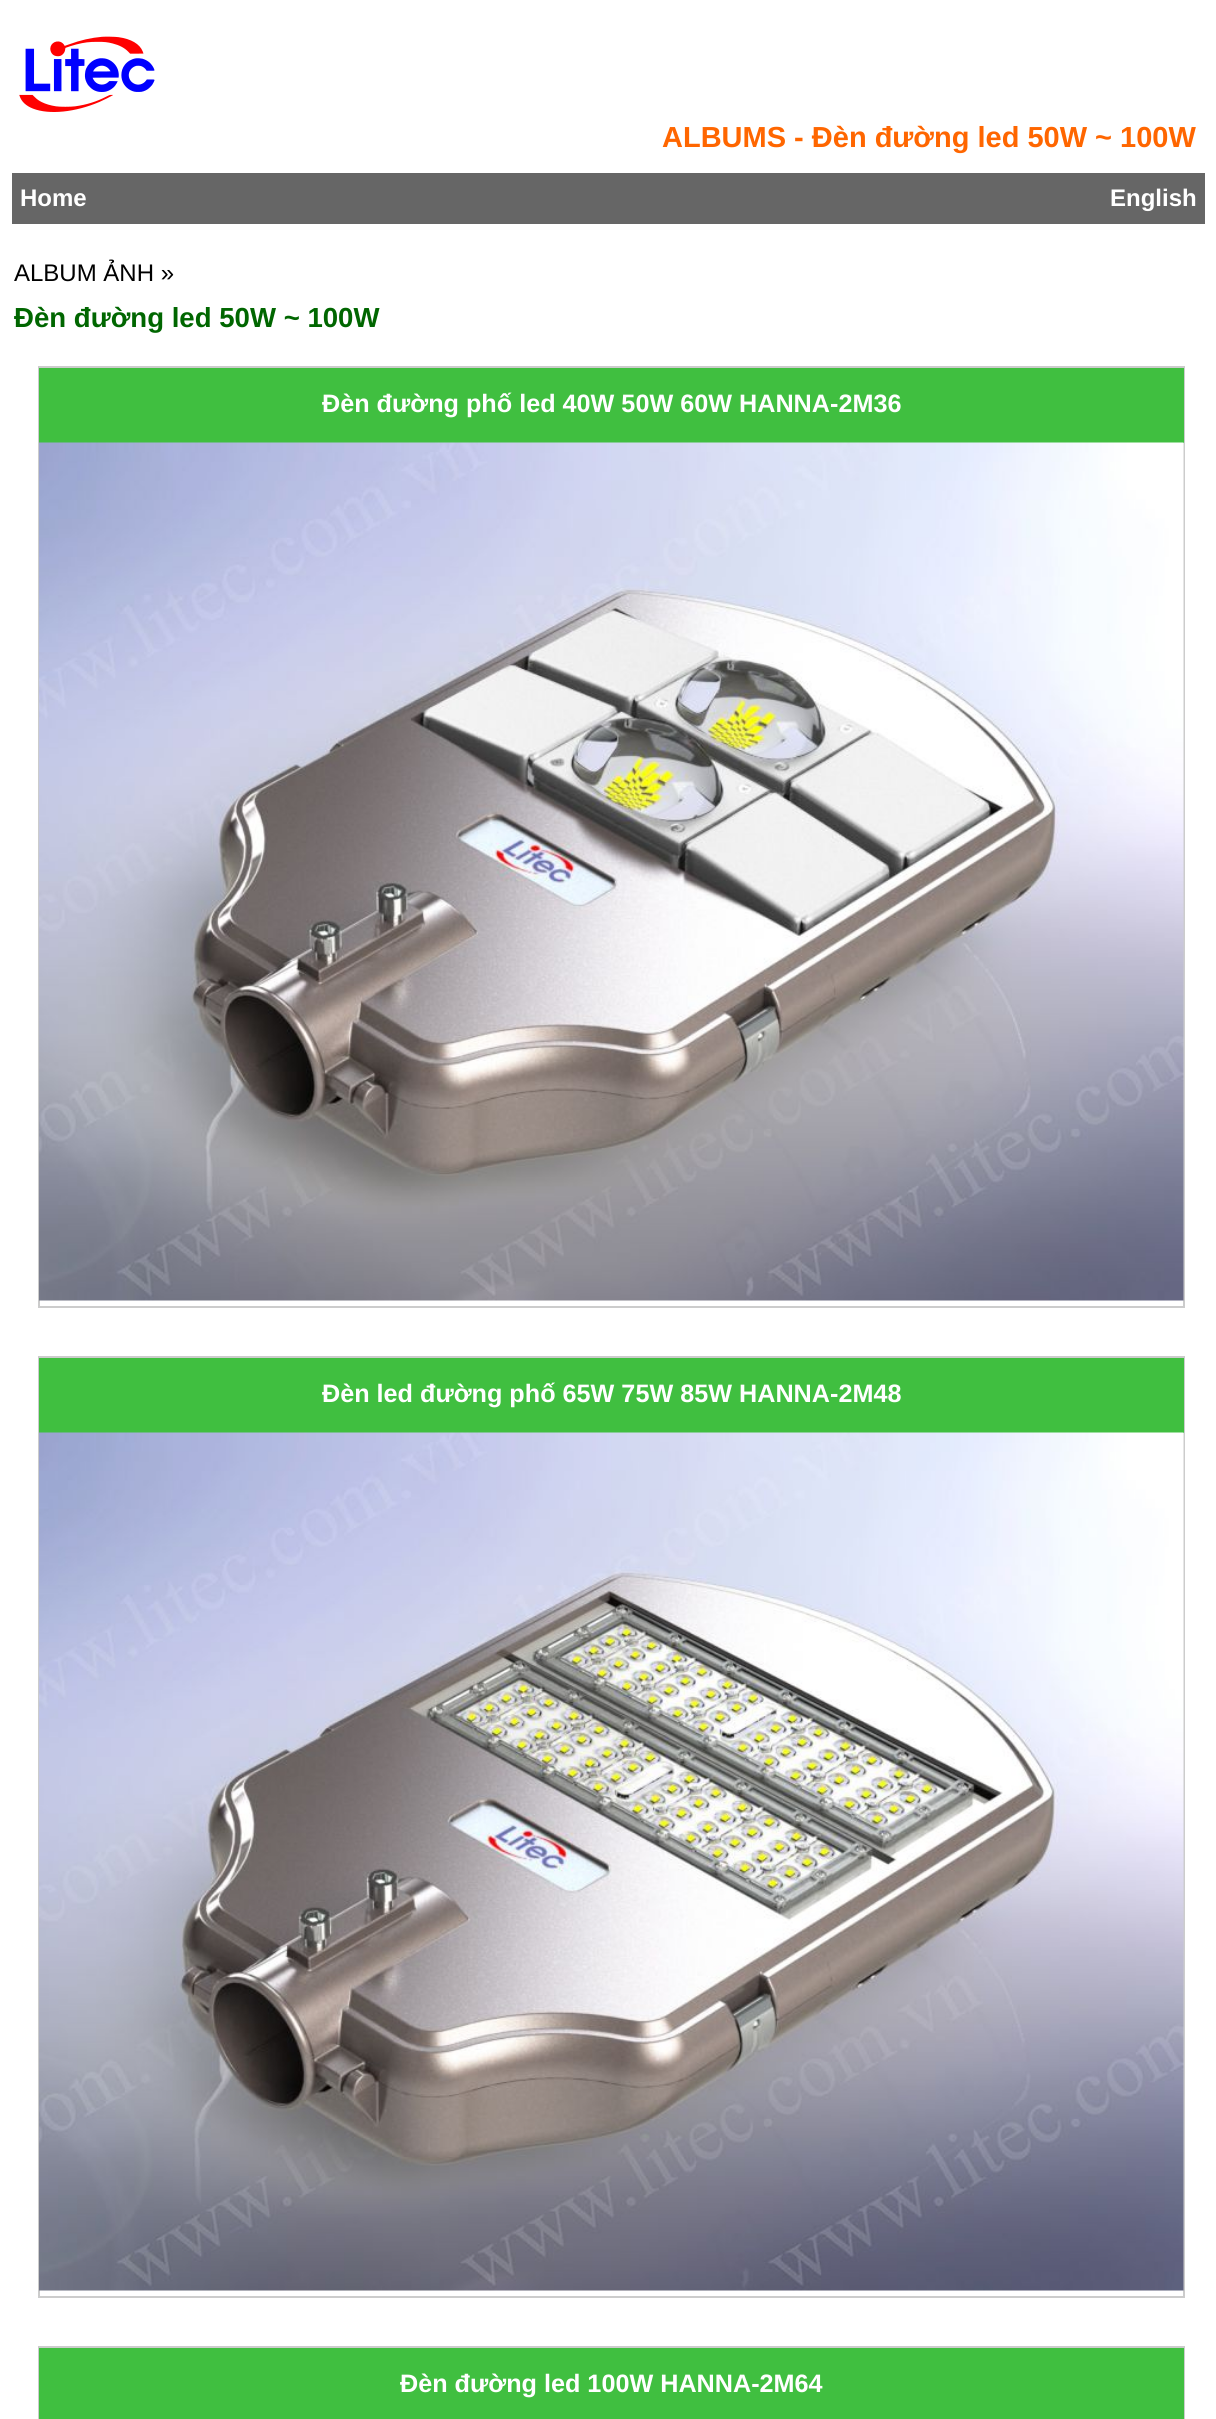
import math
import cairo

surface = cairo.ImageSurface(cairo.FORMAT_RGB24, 1216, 2419)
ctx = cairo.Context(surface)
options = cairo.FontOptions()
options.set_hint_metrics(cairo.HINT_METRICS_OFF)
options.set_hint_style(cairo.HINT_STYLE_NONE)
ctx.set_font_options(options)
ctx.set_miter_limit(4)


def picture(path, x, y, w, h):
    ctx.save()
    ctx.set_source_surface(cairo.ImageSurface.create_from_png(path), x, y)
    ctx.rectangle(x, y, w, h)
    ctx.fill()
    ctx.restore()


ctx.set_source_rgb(1, 1, 1)
ctx.paint()
picture("img1.png", 19, 36, 136, 76)
ctx.select_font_face("Liberation Sans", cairo.FONT_SLANT_NORMAL, cairo.FONT_WEIGHT_BOLD)
ctx.set_font_size(29)
ctx.set_source_rgb(1, 0.4, 0)
ctx.move_to(662, 147)
ctx.show_text("ALBUMS - Đèn đường led 50W ~ 100W")
ctx.set_source_rgb(0.4, 0.4, 0.4)
ctx.rectangle(12, 173, 1193, 51)
ctx.fill()
ctx.set_font_size(24)
ctx.set_source_rgb(1, 1, 1)
ctx.move_to(20, 206)
ctx.show_text("Home")
ctx.move_to(1110, 206)
ctx.show_text("English")
ctx.select_font_face("Liberation Sans")
ctx.set_source_rgb(0, 0, 0)
ctx.move_to(14, 281)
ctx.show_text("ALBUM ẢNH »")
ctx.select_font_face("Liberation Sans", cairo.FONT_SLANT_NORMAL, cairo.FONT_WEIGHT_BOLD)
ctx.set_font_size(27.6)
ctx.set_source_rgb(0, 0.4, 0)
ctx.move_to(14, 327)
ctx.show_text("Đèn đường led 50W ~ 100W")
ctx.rectangle(39, 367, 1145, 940)
ctx.set_source_rgb(0.8, 0.8, 0.8)
ctx.stroke()
ctx.set_source_rgb(0.251, 0.749, 0.251)
ctx.rectangle(39, 368, 1145, 75)
ctx.fill()
ctx.set_font_size(25.2)
ctx.set_source_rgb(1, 1, 1)
ctx.move_to(322, 412)
ctx.show_text("Đèn đường phố led 40W 50W 60W HANNA-2M36")
picture("img2.png", 39, 442, 1145, 859)
ctx.rectangle(39, 1357, 1145, 940)
ctx.set_source_rgb(0.8, 0.8, 0.8)
ctx.stroke()
ctx.set_source_rgb(0.251, 0.749, 0.251)
ctx.rectangle(39, 1358, 1145, 75)
ctx.fill()
ctx.set_source_rgb(1, 1, 1)
ctx.move_to(322, 1402)
ctx.show_text("Đèn led đường phố 65W 75W 85W HANNA-2M48")
picture("img3.png", 39, 1432, 1145, 859)
ctx.rectangle(39, 2347, 1145, 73)
ctx.set_source_rgb(0.8, 0.8, 0.8)
ctx.stroke()
ctx.set_source_rgb(0.251, 0.749, 0.251)
ctx.rectangle(39, 2348, 1145, 71)
ctx.fill()
ctx.set_source_rgb(1, 1, 1)
ctx.move_to(400, 2392)
ctx.show_text("Đèn đường led 100W HANNA-2M64")
surface.write_to_png("page.png")
